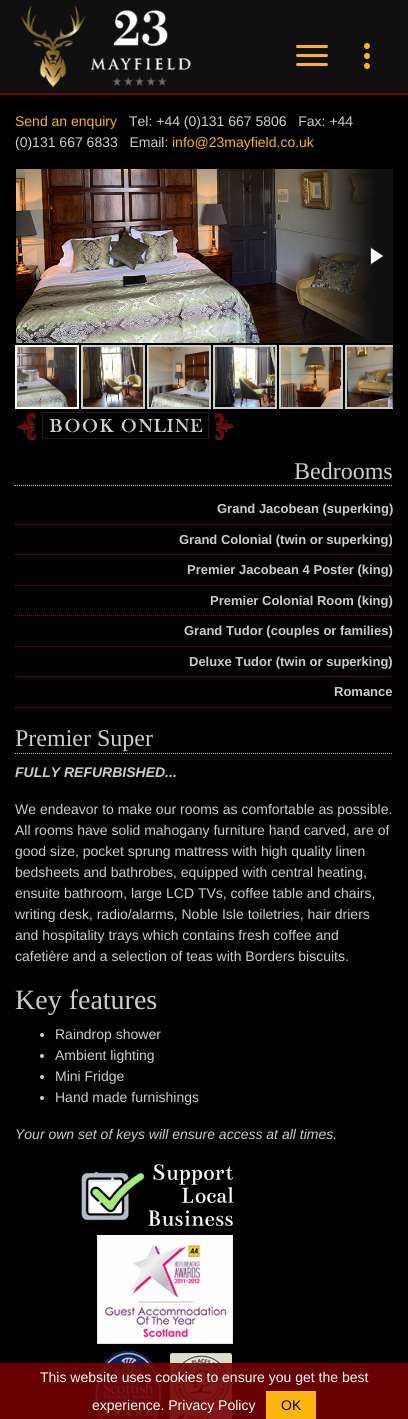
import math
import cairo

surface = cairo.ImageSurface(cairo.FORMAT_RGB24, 408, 1419)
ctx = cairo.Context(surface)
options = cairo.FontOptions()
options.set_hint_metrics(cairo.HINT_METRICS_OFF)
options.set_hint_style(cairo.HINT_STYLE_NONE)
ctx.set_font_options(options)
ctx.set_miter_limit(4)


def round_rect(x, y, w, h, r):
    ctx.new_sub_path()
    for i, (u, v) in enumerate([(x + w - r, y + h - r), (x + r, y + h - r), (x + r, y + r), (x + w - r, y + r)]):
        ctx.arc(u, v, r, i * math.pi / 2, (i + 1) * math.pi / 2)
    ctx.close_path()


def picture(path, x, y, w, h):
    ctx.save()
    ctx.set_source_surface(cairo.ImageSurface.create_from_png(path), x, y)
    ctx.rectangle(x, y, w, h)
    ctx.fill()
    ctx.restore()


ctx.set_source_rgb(0.004, 0.004, 0.004)
ctx.paint()
ctx.set_source_rgb(0.063, 0.063, 0.063)
ctx.rectangle(0, 0, 408, 93)
ctx.fill()
picture("img1.png", 19, 5, 176, 83)
ctx.set_source_rgb(0.988, 0.714, 0.055)
round_rect(296, 63, 32, 3, 1.5)
ctx.fill()
round_rect(296, 45, 32, 3, 1.5)
ctx.fill()
round_rect(296, 54, 32, 3, 1.5)
ctx.fill()
ctx.arc(367, 46, 3, 0, 2 * math.pi)
ctx.fill()
ctx.arc(367, 56, 3, 0, 2 * math.pi)
ctx.fill()
ctx.arc(367, 66, 3, 0, 2 * math.pi)
ctx.fill()
ctx.set_source_rgb(0.455, 0.012, 0.012)
ctx.rectangle(0, 93, 408, 2)
ctx.fill()
ctx.select_font_face("Liberation Sans")
ctx.set_font_size(14)
ctx.set_source_rgb(0.988, 0.714, 0.055)
ctx.move_to(15, 126)
ctx.show_text("Send an enquiry")
ctx.set_source_rgb(0.8, 0.8, 0.8)
ctx.move_to(129, 126)
ctx.show_text("Tel: +44 (0)131 667 5806   Fax: +44")
ctx.move_to(15, 147)
ctx.show_text("(0)131 667 6833   Email:")
ctx.set_source_rgb(0.988, 0.714, 0.055)
ctx.move_to(172, 147)
ctx.show_text("info@23mayfield.co.uk")
picture("img2.png", 16, 169, 377, 174)
picture("img3.png", 25, 247, 13, 18)
picture("img4.png", 370, 247, 14, 18)
ctx.save()
ctx.rectangle(15, 343, 378, 68)
ctx.clip()
ctx.rectangle(346, 346, 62, 62)
ctx.set_source_rgb(0.8, 0.8, 0.8)
ctx.stroke()
ctx.restore()
picture("img9.png", 347, 347, 46, 60)
gradient = cairo.RadialGradient(0, 0, 0, 0, 0, 1)
gradient.set_matrix(cairo.Matrix(1 / 5, 0, 0, 1 / 34, -1 * 393 / 5, -1 * 377 / 34))
gradient.add_color_stop_rgba(0, 0, 0, 0, 0.4)
gradient.add_color_stop_rgba(1, 0, 0, 0, 0)
ctx.set_source(gradient)
ctx.rectangle(388, 343, 5, 68)
ctx.fill()
gradient = cairo.LinearGradient(393, 343, 393, 411)
gradient.add_color_stop_rgba(0, 0, 0, 0, 0)
gradient.add_color_stop_rgba(0.25, 0, 0, 0, 0.2)
gradient.add_color_stop_rgba(0.75, 0, 0, 0, 0.3)
gradient.add_color_stop_rgba(1, 0, 0, 0, 0)
ctx.set_source(gradient)
ctx.rectangle(392, 343, 1, 68)
ctx.fill()
picture("img10.png", 17, 347, 60, 60)
ctx.rectangle(16, 346, 62, 62)
ctx.set_source_rgb(1, 1, 1)
ctx.stroke()
ctx.rectangle(82, 346, 62, 62)
ctx.set_source_rgb(0.8, 0.8, 0.8)
ctx.stroke()
picture("img5.png", 83, 347, 60, 60)
ctx.rectangle(148, 346, 62, 62)
ctx.stroke()
picture("img6.png", 149, 347, 60, 60)
ctx.rectangle(214, 346, 62, 62)
ctx.stroke()
picture("img7.png", 215, 347, 60, 60)
ctx.rectangle(280, 346, 62, 62)
ctx.stroke()
picture("img8.png", 281, 347, 60, 60)
picture("img11.png", 17, 412, 217, 28)
ctx.new_path()
ctx.move_to(15, 485.5)
ctx.line_to(393, 485.5)
ctx.set_line_width(1)
ctx.set_dash([1, 1])
ctx.stroke()
ctx.select_font_face("Liberation Serif")
ctx.set_font_size(24)
ctx.move_to(294, 479)
ctx.show_text("Bedrooms")
ctx.new_path()
ctx.move_to(15, 524.5)
ctx.line_to(393, 524.5)
ctx.set_source_rgb(0.612, 0.024, 0.024)
ctx.stroke()
ctx.select_font_face("Liberation Sans", cairo.FONT_SLANT_NORMAL, cairo.FONT_WEIGHT_BOLD)
ctx.set_font_size(13)
ctx.set_source_rgb(0.8, 0.8, 0.8)
ctx.move_to(217, 513)
ctx.show_text("Grand Jacobean (superking)")
ctx.new_path()
ctx.move_to(15, 554.5)
ctx.line_to(393, 554.5)
ctx.set_source_rgb(0.612, 0.024, 0.024)
ctx.stroke()
ctx.set_source_rgb(0.8, 0.8, 0.8)
ctx.move_to(179, 544)
ctx.show_text("Grand Colonial (twin or superking)")
ctx.new_path()
ctx.move_to(15, 585.5)
ctx.line_to(393, 585.5)
ctx.set_source_rgb(0.612, 0.024, 0.024)
ctx.stroke()
ctx.set_source_rgb(0.8, 0.8, 0.8)
ctx.move_to(187, 574)
ctx.show_text("Premier Jacobean 4 Poster (king)")
ctx.new_path()
ctx.move_to(15, 615.5)
ctx.line_to(393, 615.5)
ctx.set_source_rgb(0.612, 0.024, 0.024)
ctx.stroke()
ctx.set_source_rgb(0.8, 0.8, 0.8)
ctx.move_to(210, 605)
ctx.show_text("Premier Colonial Room (king)")
ctx.new_path()
ctx.move_to(15, 646.5)
ctx.line_to(393, 646.5)
ctx.set_source_rgb(0.612, 0.024, 0.024)
ctx.stroke()
ctx.set_source_rgb(0.8, 0.8, 0.8)
ctx.move_to(184, 635)
ctx.show_text("Grand Tudor (couples or families)")
ctx.new_path()
ctx.move_to(15, 676.5)
ctx.line_to(393, 676.5)
ctx.set_source_rgb(0.612, 0.024, 0.024)
ctx.stroke()
ctx.set_source_rgb(0.8, 0.8, 0.8)
ctx.move_to(189, 666)
ctx.show_text("Deluxe Tudor (twin or superking)")
ctx.new_path()
ctx.move_to(15, 707.5)
ctx.line_to(393, 707.5)
ctx.set_source_rgb(0.612, 0.024, 0.024)
ctx.stroke()
ctx.set_source_rgb(0.8, 0.8, 0.8)
ctx.move_to(334, 696)
ctx.show_text("Romance")
ctx.new_path()
ctx.move_to(15, 753.5)
ctx.line_to(393, 753.5)
ctx.stroke()
ctx.select_font_face("Liberation Serif")
ctx.set_font_size(24)
ctx.move_to(15, 746)
ctx.show_text("Premier Super")
ctx.select_font_face("Liberation Sans", cairo.FONT_SLANT_ITALIC, cairo.FONT_WEIGHT_BOLD)
ctx.set_font_size(14)
ctx.move_to(15, 777)
ctx.show_text("FULLY REFURBISHED...")
ctx.select_font_face("Liberation Sans")
ctx.move_to(15, 814)
ctx.show_text("We endeavor to make our rooms as comfortable as possible.")
ctx.move_to(15, 835)
ctx.show_text("All rooms have solid mahogany furniture hand carved, are of")
ctx.move_to(15, 856)
ctx.show_text("good size, pocket sprung mattress with high quality linen")
ctx.move_to(15, 877)
ctx.show_text("bedsheets and bathrobes, equipped with central heating,")
ctx.move_to(15, 898)
ctx.show_text("ensuite bathroom, large LCD TVs, coffee table and chairs,")
ctx.move_to(15, 919)
ctx.show_text("writing desk, radio/alarms, Noble Isle toiletries, hair driers")
ctx.move_to(15, 940)
ctx.show_text("and hospitality trays which contains fresh coffee and")
ctx.move_to(15, 961)
ctx.show_text("cafetière and a selection of teas with Borders biscuits.")
ctx.select_font_face("Liberation Serif")
ctx.set_font_size(28)
ctx.move_to(15, 1009)
ctx.show_text("Key features")
ctx.new_path()
ctx.arc(42, 1035, 2, 0, 2 * math.pi)
ctx.fill()
ctx.select_font_face("Liberation Sans")
ctx.set_font_size(14)
ctx.move_to(55, 1039)
ctx.show_text("Raindrop shower")
ctx.new_path()
ctx.arc(42, 1056, 2, 0, 2 * math.pi)
ctx.fill()
ctx.move_to(55, 1060)
ctx.show_text("Ambient lighting")
ctx.new_path()
ctx.arc(42, 1077, 2, 0, 2 * math.pi)
ctx.fill()
ctx.move_to(55, 1081)
ctx.show_text("Mini Fridge")
ctx.new_path()
ctx.arc(42, 1098, 2, 0, 2 * math.pi)
ctx.fill()
ctx.move_to(55, 1102)
ctx.show_text("Hand made furnishings")
ctx.select_font_face("Liberation Sans", cairo.FONT_SLANT_ITALIC)
ctx.move_to(15, 1139)
ctx.show_text("Your own set of keys will ensure access at all times.")
picture("img12.png", 81, 1164, 153, 255)
ctx.set_source_rgba(0.455, 0.012, 0.012, 0.9)
ctx.rectangle(0, 1363, 408, 56)
ctx.fill()
ctx.select_font_face("Liberation Sans")
ctx.set_source_rgb(1, 1, 1)
ctx.move_to(40, 1382)
ctx.show_text("This website uses cookies to ensure you get the best")
ctx.move_to(92, 1410)
ctx.show_text("experience. Privacy Policy")
ctx.set_source_rgb(0.988, 0.714, 0.055)
ctx.rectangle(266, 1391, 50, 28)
ctx.fill()
ctx.set_source_rgb(0.004, 0.004, 0.004)
ctx.move_to(281, 1410)
ctx.show_text("OK")
surface.write_to_png("page.png")
